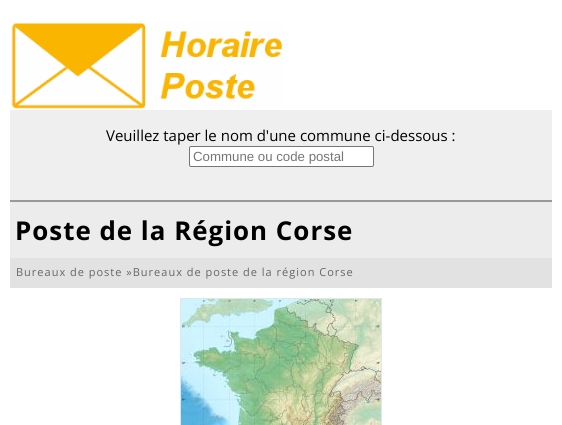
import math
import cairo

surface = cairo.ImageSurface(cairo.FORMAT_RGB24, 562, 425)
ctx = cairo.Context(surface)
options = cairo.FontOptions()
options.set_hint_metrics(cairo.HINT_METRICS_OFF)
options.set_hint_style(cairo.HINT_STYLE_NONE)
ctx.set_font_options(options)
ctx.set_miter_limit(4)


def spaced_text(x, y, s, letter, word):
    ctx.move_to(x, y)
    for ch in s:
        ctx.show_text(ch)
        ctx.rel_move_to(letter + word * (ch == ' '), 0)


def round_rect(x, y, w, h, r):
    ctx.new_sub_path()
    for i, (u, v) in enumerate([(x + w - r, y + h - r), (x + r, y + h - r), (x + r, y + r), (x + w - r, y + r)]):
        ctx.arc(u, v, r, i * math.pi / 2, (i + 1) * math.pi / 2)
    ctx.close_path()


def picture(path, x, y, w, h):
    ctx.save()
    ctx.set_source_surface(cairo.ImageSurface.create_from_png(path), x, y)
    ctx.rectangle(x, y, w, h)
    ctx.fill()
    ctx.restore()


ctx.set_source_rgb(1, 1, 1)
ctx.paint()
ctx.set_source_rgb(0.6, 0.6, 0.6)
ctx.rectangle(10, 200, 542, 2)
ctx.fill()
picture("img1.png", 11, 22, 271, 87)
ctx.set_source_rgb(0.937, 0.937, 0.937)
ctx.rectangle(10, 110, 542, 90)
ctx.fill()
ctx.select_font_face("Open Sans")
ctx.set_font_size(15)
ctx.set_source_rgb(0, 0, 0)
ctx.move_to(106, 141)
ctx.show_text("Veuillez taper le nom d'une commune ci-dessous :")
ctx.set_source_rgb(1, 1, 1)
round_rect(189.5, 146.5, 184, 20, 1.5)
ctx.fill_preserve()
ctx.set_source_rgb(0.463, 0.463, 0.463)
ctx.set_line_width(1)
ctx.stroke()
ctx.select_font_face("Liberation Sans")
ctx.set_font_size(13.25)
ctx.set_source_rgb(0.459, 0.459, 0.459)
ctx.move_to(193, 161)
ctx.show_text("Commune ou code postal")
ctx.set_source_rgb(0.922, 0.922, 0.922)
ctx.rectangle(10, 202, 542, 56)
ctx.fill()
ctx.select_font_face("Open Sans", cairo.FONT_SLANT_NORMAL, cairo.FONT_WEIGHT_BOLD)
ctx.set_font_size(25.9)
ctx.set_source_rgb(0, 0, 0)
spaced_text(15, 240, "Poste de la Région Corse", 1, 0)
ctx.set_source_rgb(0.886, 0.886, 0.886)
ctx.rectangle(10, 258, 542, 30)
ctx.fill()
ctx.select_font_face("Open Sans")
ctx.set_font_size(11)
ctx.set_source_rgb(0.4, 0.4, 0.4)
spaced_text(16, 276, "Bureaux de poste »Bureaux de poste de la région Corse", 1, 0)
picture("img2.png", 181, 299, 200, 126)
ctx.rectangle(180.5, 298.5, 201, 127)
ctx.set_source_rgb(0.875, 0.906, 0.918)
ctx.stroke()
surface.write_to_png("page.png")
